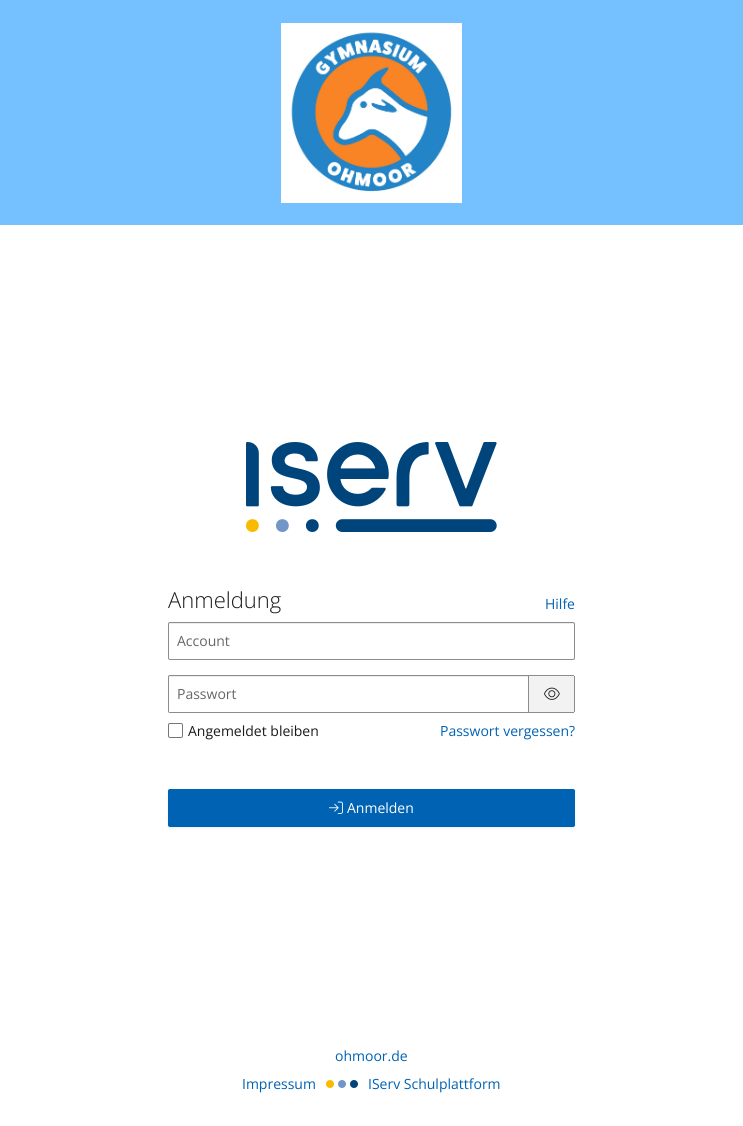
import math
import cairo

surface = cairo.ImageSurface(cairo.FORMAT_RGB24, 743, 1126)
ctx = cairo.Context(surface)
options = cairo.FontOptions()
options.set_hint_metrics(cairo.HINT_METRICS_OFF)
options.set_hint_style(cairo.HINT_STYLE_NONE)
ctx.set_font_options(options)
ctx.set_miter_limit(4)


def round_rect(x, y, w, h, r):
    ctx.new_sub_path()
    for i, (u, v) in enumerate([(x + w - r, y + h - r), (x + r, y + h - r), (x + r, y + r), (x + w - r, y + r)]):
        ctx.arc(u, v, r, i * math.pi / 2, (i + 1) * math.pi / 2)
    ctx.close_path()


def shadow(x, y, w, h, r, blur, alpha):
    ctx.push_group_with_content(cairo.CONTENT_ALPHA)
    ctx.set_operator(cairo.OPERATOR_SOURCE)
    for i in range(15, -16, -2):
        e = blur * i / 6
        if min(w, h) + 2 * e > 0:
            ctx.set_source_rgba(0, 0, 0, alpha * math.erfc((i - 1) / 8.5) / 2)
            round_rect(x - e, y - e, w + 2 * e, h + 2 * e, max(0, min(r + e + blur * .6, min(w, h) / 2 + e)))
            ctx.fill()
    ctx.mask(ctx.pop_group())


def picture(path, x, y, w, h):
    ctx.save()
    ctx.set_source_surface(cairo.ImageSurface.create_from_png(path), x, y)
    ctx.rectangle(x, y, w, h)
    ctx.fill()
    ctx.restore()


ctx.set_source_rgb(1, 1, 1)
ctx.paint()
ctx.set_source_rgb(0.459, 0.757, 1)
ctx.rectangle(0, 0, 743, 225)
ctx.fill()
picture("img1.png", 281, 23, 181, 180)
picture("img2.png", 246, 442, 251, 90)
ctx.select_font_face("Open Sans Light")
ctx.set_font_size(22)
ctx.set_source_rgb(0.102, 0.102, 0.102)
ctx.move_to(168, 608)
ctx.show_text("Anmeldung")
ctx.select_font_face("Open Sans")
ctx.set_font_size(14)
ctx.set_source_rgb(0, 0.384, 0.702)
ctx.move_to(545, 609)
ctx.show_text("Hilfe")
ctx.set_source_rgb(0.925, 0.925, 0.925)
ctx.new_path()
ctx.move_to(170, 624)
ctx.line_to(573, 624)
ctx.line_to(574, 624)
ctx.line_to(574, 625)
ctx.line_to(574, 623)
ctx.line_to(372, 623)
ctx.line_to(170, 623)
ctx.line_to(169, 624)
ctx.line_to(169, 625)
ctx.curve_to(169, 624, 169, 624, 170, 624)
ctx.close_path()
ctx.fill()
round_rect(168.5, 622.5, 406, 37, 1.5)
ctx.set_source_rgb(0.549, 0.549, 0.549)
ctx.set_line_width(1)
ctx.stroke()
ctx.set_source_rgb(0.4, 0.4, 0.4)
ctx.move_to(177, 646)
ctx.show_text("Account")
ctx.set_source_rgb(0.925, 0.925, 0.925)
ctx.new_path()
ctx.move_to(170, 677)
ctx.line_to(528, 677)
ctx.line_to(528, 676)
ctx.line_to(170, 676)
ctx.curve_to(169, 676, 169, 677, 169, 678)
ctx.close_path()
ctx.fill()
ctx.new_path()
ctx.move_to(170, 675.5)
ctx.line_to(528.5, 675.5)
ctx.line_to(528.5, 712.5)
ctx.line_to(170, 712.5)
ctx.curve_to(169, 712.5, 168.5, 712, 168.5, 711)
ctx.line_to(168.5, 677)
ctx.curve_to(168.5, 676, 169, 675.5, 170, 675.5)
ctx.close_path()
ctx.set_source_rgb(0.549, 0.549, 0.549)
ctx.stroke()
ctx.set_source_rgb(0.4, 0.4, 0.4)
ctx.move_to(177, 699)
ctx.show_text("Passwort")
ctx.set_source_rgb(0.949, 0.949, 0.949)
ctx.new_path()
ctx.move_to(529, 675)
ctx.line_to(573, 675)
ctx.curve_to(574, 675, 575, 676, 575, 677)
ctx.line_to(575, 711)
ctx.curve_to(575, 712, 574, 713, 573, 713)
ctx.line_to(529, 713)
ctx.close_path()
ctx.fill()
ctx.set_source_rgb(0.549, 0.549, 0.549)
ctx.rectangle(529, 675, 45, 1)
ctx.fill()
ctx.rectangle(574, 676, 1, 36)
ctx.fill()
ctx.rectangle(529, 712, 45, 1)
ctx.fill()
picture("img3.png", 544, 687, 16, 13)
round_rect(168.5, 723.5, 14, 14, 1.5)
ctx.set_source_rgb(0.463, 0.463, 0.463)
ctx.stroke()
ctx.set_source_rgb(0.102, 0.102, 0.102)
ctx.move_to(188, 736)
ctx.show_text("Angemeldet bleiben")
ctx.set_source_rgb(0, 0.384, 0.702)
ctx.move_to(440, 736)
ctx.show_text("Passwort vergessen?")
ctx.set_source_rgb(0, 0, 0)
shadow(168, 790, 407, 38, 2, 1.5, 0.08)
ctx.set_source_rgb(0, 0.384, 0.702)
round_rect(168.5, 789.5, 406, 37, 1.5)
ctx.fill_preserve()
ctx.stroke()
picture("img4.png", 329, 801, 14, 13)
ctx.set_source_rgb(1, 1, 1)
ctx.move_to(347, 813)
ctx.show_text("Anmelden")
ctx.set_source_rgb(0, 0.384, 0.702)
ctx.move_to(335, 1061)
ctx.show_text("ohmoor.de")
ctx.move_to(242, 1089)
ctx.show_text("Impressum")
picture("img5.png", 326, 1080, 8, 8)
picture("img6.png", 338, 1080, 8, 8)
picture("img7.png", 350, 1080, 8, 8)
ctx.move_to(368, 1089)
ctx.show_text("IServ Schulplattform")
surface.write_to_png("page.png")
